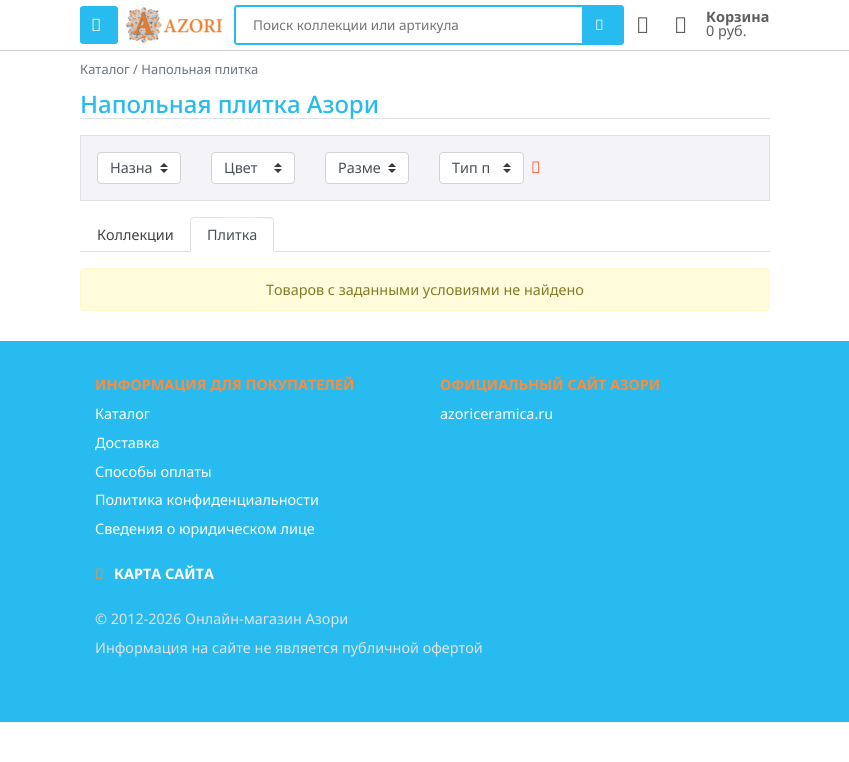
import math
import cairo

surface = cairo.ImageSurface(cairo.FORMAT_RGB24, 849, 762)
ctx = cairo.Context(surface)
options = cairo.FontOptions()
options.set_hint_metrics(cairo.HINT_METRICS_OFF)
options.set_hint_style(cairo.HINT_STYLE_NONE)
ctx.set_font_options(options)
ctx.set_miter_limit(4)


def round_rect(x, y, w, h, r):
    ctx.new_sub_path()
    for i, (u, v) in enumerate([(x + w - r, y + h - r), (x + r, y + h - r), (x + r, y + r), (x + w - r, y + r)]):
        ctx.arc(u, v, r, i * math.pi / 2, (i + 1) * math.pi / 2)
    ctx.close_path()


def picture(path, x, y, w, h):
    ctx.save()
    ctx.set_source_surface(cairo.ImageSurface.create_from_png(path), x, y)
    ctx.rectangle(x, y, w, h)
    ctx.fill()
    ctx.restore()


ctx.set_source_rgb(1, 1, 1)
ctx.paint()
ctx.set_source_rgb(0.827, 0.827, 0.827)
ctx.rectangle(0, 50, 849, 1)
ctx.fill()
ctx.set_source_rgb(0.153, 0.733, 0.937)
round_rect(80, 6, 38, 38, 3)
ctx.fill()
picture("img1.png", 92, 18, 8, 13)
picture("img2.png", 125, 7, 97, 36)
round_rect(235, 6, 388, 38, 2)
ctx.stroke()
ctx.select_font_face("Noto Sans")
ctx.set_font_size(13.5)
ctx.set_source_rgb(0.459, 0.459, 0.459)
ctx.move_to(253, 30)
ctx.show_text("Поиск коллекции или артикула")
ctx.set_source_rgb(0.153, 0.733, 0.937)
ctx.rectangle(582, 7, 40, 36)
ctx.fill()
picture("img3.png", 596, 19, 7, 11)
picture("img4.png", 638, 17, 10, 16)
picture("img4.png", 676, 17, 10, 16)
ctx.select_font_face("Noto Sans", cairo.FONT_SLANT_NORMAL, cairo.FONT_WEIGHT_BOLD)
ctx.set_font_size(14.4)
ctx.set_source_rgb(0.373, 0.369, 0.369)
ctx.move_to(706, 22)
ctx.show_text("Корзина")
ctx.select_font_face("Noto Sans")
ctx.move_to(706, 36)
ctx.show_text("0 руб.")
ctx.set_font_size(13)
ctx.set_source_rgb(0.424, 0.459, 0.49)
ctx.move_to(80, 74)
ctx.show_text("Каталог / Напольная плитка")
ctx.set_source_rgb(0.871, 0.886, 0.902)
ctx.rectangle(80, 118, 690, 1)
ctx.fill()
ctx.select_font_face("Noto Sans Medium")
ctx.set_font_size(24)
ctx.set_source_rgb(0.153, 0.733, 0.937)
ctx.move_to(80, 113)
ctx.show_text("Напольная плитка Азори")
ctx.set_source_rgb(0.953, 0.953, 0.969)
ctx.rectangle(80.5, 135.5, 689, 65)
ctx.fill_preserve()
ctx.set_source_rgb(0.871, 0.886, 0.902)
ctx.set_line_width(1)
ctx.stroke()
ctx.set_source_rgb(1, 1, 1)
round_rect(97, 152, 84, 32, 4)
ctx.fill()
picture("img5.png", 160, 163, 8, 10)
round_rect(97.5, 152.5, 83, 31, 3.5)
ctx.set_source_rgb(0.808, 0.831, 0.855)
ctx.stroke()
ctx.select_font_face("Noto Sans")
ctx.set_font_size(14.4)
ctx.set_source_rgb(0.286, 0.314, 0.341)
ctx.move_to(110, 173)
ctx.show_text("Назна")
ctx.set_source_rgb(1, 1, 1)
round_rect(211, 152, 84, 32, 4)
ctx.fill()
picture("img5.png", 274, 163, 8, 10)
round_rect(211.5, 152.5, 83, 31, 3.5)
ctx.set_source_rgb(0.808, 0.831, 0.855)
ctx.stroke()
ctx.set_source_rgb(0.286, 0.314, 0.341)
ctx.move_to(224, 173)
ctx.show_text("Цвет")
ctx.set_source_rgb(1, 1, 1)
round_rect(325, 152, 84, 32, 4)
ctx.fill()
picture("img5.png", 388, 163, 8, 10)
round_rect(325.5, 152.5, 83, 31, 3.5)
ctx.set_source_rgb(0.808, 0.831, 0.855)
ctx.stroke()
ctx.save()
ctx.rectangle(338, 159, 42, 18)
ctx.clip()
ctx.set_source_rgb(0.286, 0.314, 0.341)
ctx.move_to(338, 173)
ctx.show_text("Разме")
ctx.restore()
ctx.set_source_rgb(1, 1, 1)
round_rect(439, 152, 85, 32, 4)
ctx.fill()
picture("img5.png", 503, 163, 8, 10)
round_rect(439.5, 152.5, 84, 31, 3.5)
ctx.set_source_rgb(0.808, 0.831, 0.855)
ctx.stroke()
ctx.set_source_rgb(0.286, 0.314, 0.341)
ctx.move_to(452, 173)
ctx.show_text("Тип п")
picture("img6.png", 532, 161, 8, 12)
ctx.set_source_rgb(0.871, 0.886, 0.902)
ctx.rectangle(80, 251, 690, 1)
ctx.fill()
ctx.set_source_rgb(0.259, 0.259, 0.259)
ctx.move_to(97, 240)
ctx.show_text("Коллекции")
ctx.set_source_rgb(1, 1, 1)
ctx.new_path()
ctx.move_to(194, 217)
ctx.line_to(270, 217)
ctx.curve_to(272, 217, 274, 219, 274, 221)
ctx.line_to(274, 252)
ctx.line_to(190, 252)
ctx.line_to(190, 221)
ctx.curve_to(190, 219, 192, 217, 194, 217)
ctx.close_path()
ctx.fill()
ctx.set_source_rgb(0.871, 0.886, 0.902)
ctx.new_path()
ctx.move_to(194, 217)
ctx.line_to(191, 218)
ctx.line_to(192, 219)
ctx.line_to(194, 218)
ctx.line_to(207, 218)
ctx.curve_to(214, 218, 270, 217, 272, 219)
ctx.line_to(273, 218)
ctx.line_to(270, 217)
ctx.close_path()
ctx.fill()
ctx.new_path()
ctx.move_to(274, 252)
ctx.line_to(274, 221)
ctx.curve_to(274, 220, 273.5, 219, 273, 218)
ctx.line_to(272, 219)
ctx.curve_to(273, 219, 273, 220, 273, 221)
ctx.line_to(273, 251)
ctx.close_path()
ctx.fill()
ctx.set_source_rgb(1, 1, 1)
ctx.new_path()
ctx.move_to(274, 252)
ctx.line_to(273, 251)
ctx.line_to(191, 251)
ctx.line_to(190, 252)
ctx.close_path()
ctx.fill()
ctx.set_source_rgb(0.871, 0.886, 0.902)
ctx.new_path()
ctx.move_to(190, 252)
ctx.line_to(191, 251)
ctx.line_to(191, 221)
ctx.curve_to(191, 220, 191, 219, 192, 219)
ctx.line_to(191, 218)
ctx.curve_to(190.5, 219, 190, 220, 190, 221)
ctx.close_path()
ctx.fill()
ctx.set_source_rgb(0.286, 0.314, 0.341)
ctx.move_to(207, 240)
ctx.show_text("Плитка")
ctx.set_source_rgb(1, 0.984, 0.859)
round_rect(80.5, 268.5, 689, 42, 3.5)
ctx.fill_preserve()
ctx.set_source_rgb(1, 0.98, 0.8)
ctx.stroke()
ctx.set_source_rgb(0.522, 0.482, 0.149)
ctx.move_to(266, 295)
ctx.show_text("Товаров с заданными условиями не найдено")
ctx.set_source_rgb(0.153, 0.733, 0.937)
ctx.rectangle(0, 341, 849, 381)
ctx.fill()
ctx.select_font_face("Noto Sans", cairo.FONT_SLANT_NORMAL, cairo.FONT_WEIGHT_BOLD)
ctx.set_source_rgb(1, 0.545, 0.22)
ctx.move_to(95, 390)
ctx.show_text("ИНФОРМАЦИЯ ДЛЯ ПОКУПАТЕЛЕЙ")
ctx.select_font_face("Noto Sans")
ctx.set_source_rgb(1, 1, 1)
ctx.move_to(95, 419)
ctx.show_text("Каталог")
ctx.move_to(95, 448)
ctx.show_text("Доставка")
ctx.move_to(95, 477)
ctx.show_text("Способы оплаты")
ctx.move_to(95, 505)
ctx.show_text("Политика конфиденциальности")
ctx.move_to(95, 534)
ctx.show_text("Сведения о юридическом лице")
ctx.select_font_face("Noto Sans", cairo.FONT_SLANT_NORMAL, cairo.FONT_WEIGHT_BOLD)
ctx.set_source_rgb(1, 0.545, 0.22)
ctx.move_to(440, 390)
ctx.show_text("ОФИЦИАЛЬНЫЙ САЙТ АЗОРИ")
ctx.select_font_face("Noto Sans")
ctx.set_source_rgb(1, 1, 1)
ctx.move_to(440, 419)
ctx.show_text("azoriceramica.ru")
picture("img7.png", 96, 568, 7, 11)
ctx.select_font_face("Noto Sans", cairo.FONT_SLANT_NORMAL, cairo.FONT_WEIGHT_BOLD)
ctx.move_to(114, 579)
ctx.show_text("КАРТА САЙТА")
ctx.select_font_face("Noto Sans")
ctx.set_source_rgb(0.871, 0.886, 0.902)
ctx.move_to(95, 624)
ctx.show_text("© 2012-2026 Онлайн-магазин Азори")
ctx.move_to(95, 653)
ctx.show_text("Информация на сайте не является публичной офертой")
surface.write_to_png("page.png")
